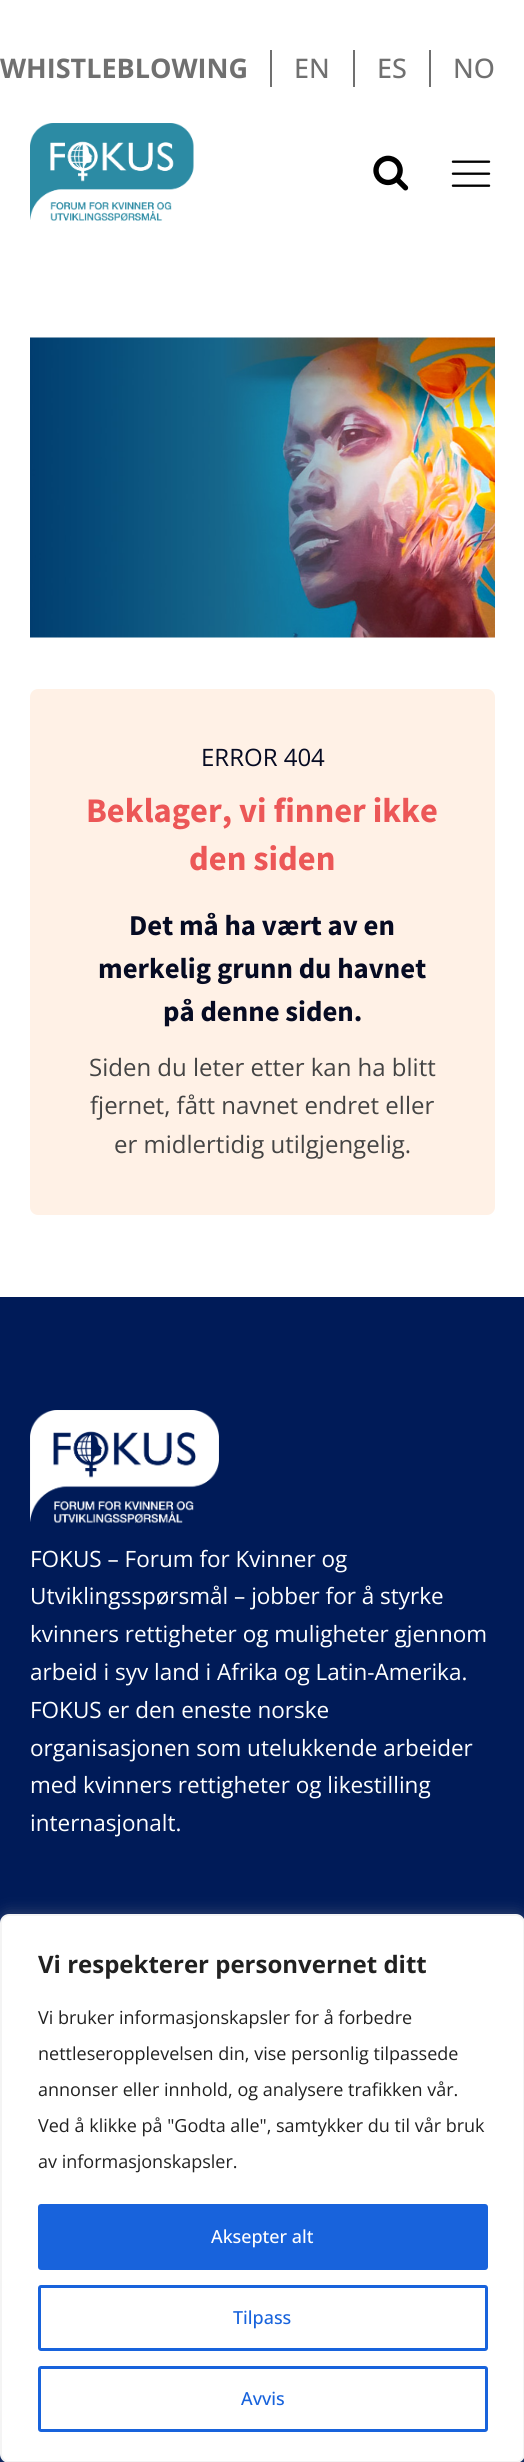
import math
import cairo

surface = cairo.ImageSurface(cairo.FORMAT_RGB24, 524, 2462)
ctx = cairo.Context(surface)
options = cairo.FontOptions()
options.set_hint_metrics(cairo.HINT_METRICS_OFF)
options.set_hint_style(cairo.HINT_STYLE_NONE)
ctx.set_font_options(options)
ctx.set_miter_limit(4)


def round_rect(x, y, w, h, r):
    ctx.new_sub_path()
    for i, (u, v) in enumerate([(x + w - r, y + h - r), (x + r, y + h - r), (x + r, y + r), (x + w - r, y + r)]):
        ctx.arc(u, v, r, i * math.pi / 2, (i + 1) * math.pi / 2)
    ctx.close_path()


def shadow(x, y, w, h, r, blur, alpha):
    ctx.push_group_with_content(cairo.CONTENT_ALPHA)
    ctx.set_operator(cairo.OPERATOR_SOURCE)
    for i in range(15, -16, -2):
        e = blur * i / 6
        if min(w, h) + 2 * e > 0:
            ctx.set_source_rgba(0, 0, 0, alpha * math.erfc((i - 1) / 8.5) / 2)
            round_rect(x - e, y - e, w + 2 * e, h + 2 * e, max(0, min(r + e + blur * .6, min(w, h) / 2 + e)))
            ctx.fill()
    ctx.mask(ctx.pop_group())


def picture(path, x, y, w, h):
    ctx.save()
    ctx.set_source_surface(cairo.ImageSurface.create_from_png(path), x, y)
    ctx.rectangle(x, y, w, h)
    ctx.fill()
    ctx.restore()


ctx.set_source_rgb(1, 1, 1)
ctx.paint()
ctx.select_font_face("Open Sans", cairo.FONT_SLANT_NORMAL, cairo.FONT_WEIGHT_BOLD)
ctx.set_font_size(27)
ctx.set_source_rgb(0.439, 0.439, 0.439)
ctx.move_to(0, 78)
ctx.show_text("WHISTLEBLOWING")
ctx.rectangle(270, 50, 2, 37)
ctx.fill()
ctx.select_font_face("Open Sans Medium")
ctx.move_to(294, 78)
ctx.show_text("EN")
ctx.rectangle(353, 50, 2, 37)
ctx.fill()
ctx.move_to(377, 78)
ctx.show_text("ES")
ctx.rectangle(429, 50, 2, 37)
ctx.fill()
ctx.move_to(453, 78)
ctx.show_text("NO")
picture("img1.png", 30, 123, 164, 98)
picture("img2.png", 373, 155, 36, 36)
picture("img3.png", 451, 160, 40, 27)
picture("img4.png", 30, 337, 465, 301)
ctx.set_source_rgb(1, 0.945, 0.902)
round_rect(30, 689, 465, 526, 8)
ctx.fill()
ctx.select_font_face("Open Sans")
ctx.set_font_size(24)
ctx.set_source_rgb(0.024, 0.043, 0.137)
ctx.move_to(201, 766)
ctx.show_text("ERROR 404")
ctx.select_font_face("Source Sans Pro", cairo.FONT_SLANT_NORMAL, cairo.FONT_WEIGHT_BOLD)
ctx.set_font_size(34.5)
ctx.set_source_rgb(0.922, 0.341, 0.341)
ctx.move_to(86, 822)
ctx.show_text("Beklager, vi finner ikke")
ctx.move_to(189, 870)
ctx.show_text("den siden")
ctx.set_font_size(28.75)
ctx.set_source_rgb(0.024, 0.043, 0.137)
ctx.move_to(129, 935)
ctx.show_text("Det må ha vært av en")
ctx.move_to(98, 978)
ctx.show_text("merkelig grunn du havnet")
ctx.move_to(163, 1021)
ctx.show_text("på denne siden.")
ctx.select_font_face("Open Sans")
ctx.set_font_size(24)
ctx.set_source_rgb(0.267, 0.267, 0.267)
ctx.move_to(89, 1076)
ctx.show_text("Siden du leter etter kan ha blitt")
ctx.move_to(90, 1114)
ctx.show_text("fjernet, fått navnet endret eller")
ctx.move_to(114, 1153)
ctx.show_text("er midlertidig utilgjengelig.")
ctx.set_source_rgb(0, 0.106, 0.345)
ctx.rectangle(0, 1297, 524, 1165)
ctx.fill()
picture("img5.png", 30, 1410, 189, 113)
ctx.set_font_size(22.5)
ctx.set_source_rgb(1, 1, 1)
ctx.move_to(30, 1567)
ctx.show_text("FOKUS – Forum for Kvinner og")
ctx.move_to(30, 1604)
ctx.show_text("Utviklingsspørsmål – jobber for å styrke")
ctx.move_to(30, 1642)
ctx.show_text("kvinners rettigheter og muligheter gjennom")
ctx.move_to(30, 1680)
ctx.show_text("arbeid i syv land i Afrika og Latin-Amerika.")
ctx.move_to(30, 1718)
ctx.show_text("FOKUS er den eneste norske")
ctx.move_to(30, 1756)
ctx.show_text("organisasjonen som utelukkende arbeider")
ctx.move_to(30, 1793)
ctx.show_text("med kvinners rettigheter og likestilling")
ctx.move_to(30, 1831)
ctx.show_text("internasjonalt.")
ctx.set_source_rgb(0.675, 0.671, 0.671)
shadow(0, 1913, 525, 549, 9, 7.5, 0.3)
ctx.set_source_rgb(1, 1, 1)
round_rect(1, 1915, 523, 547, 8)
ctx.fill_preserve()
ctx.set_source_rgb(0.957, 0.957, 0.957)
ctx.stroke()
ctx.select_font_face("Open Sans", cairo.FONT_SLANT_NORMAL, cairo.FONT_WEIGHT_BOLD)
ctx.set_font_size(24)
ctx.set_source_rgb(0.129, 0.129, 0.129)
ctx.move_to(38, 1973)
ctx.show_text("Vi respekterer personvernet ditt")
ctx.select_font_face("Open Sans")
ctx.set_font_size(18)
ctx.move_to(38, 2024)
ctx.show_text("Vi bruker informasjonskapsler for å forbedre")
ctx.move_to(38, 2060)
ctx.show_text("nettleseropplevelsen din, vise personlig tilpassede")
ctx.move_to(38, 2096)
ctx.show_text("annonser eller innhold, og analysere trafikken vår.")
ctx.move_to(38, 2132)
ctx.show_text("Ved å klikke på \"Godta alle\", samtykker du til vår bruk")
ctx.move_to(38, 2168)
ctx.show_text("av informasjonskapsler.")
ctx.set_source_rgb(0.094, 0.388, 0.863)
round_rect(39.5, 2205.5, 447, 63, 1.5)
ctx.fill_preserve()
ctx.set_line_width(3)
ctx.stroke()
ctx.select_font_face("Open Sans Medium")
ctx.set_source_rgb(1, 1, 1)
ctx.move_to(211, 2243)
ctx.show_text("Aksepter alt")
round_rect(39.5, 2286.5, 447, 63, 1.5)
ctx.set_source_rgb(0.094, 0.388, 0.863)
ctx.stroke()
ctx.move_to(233, 2324)
ctx.show_text("Tilpass")
round_rect(39.5, 2367.5, 447, 63, 1.5)
ctx.stroke()
ctx.move_to(241, 2405)
ctx.show_text("Avvis")
surface.write_to_png("page.png")
